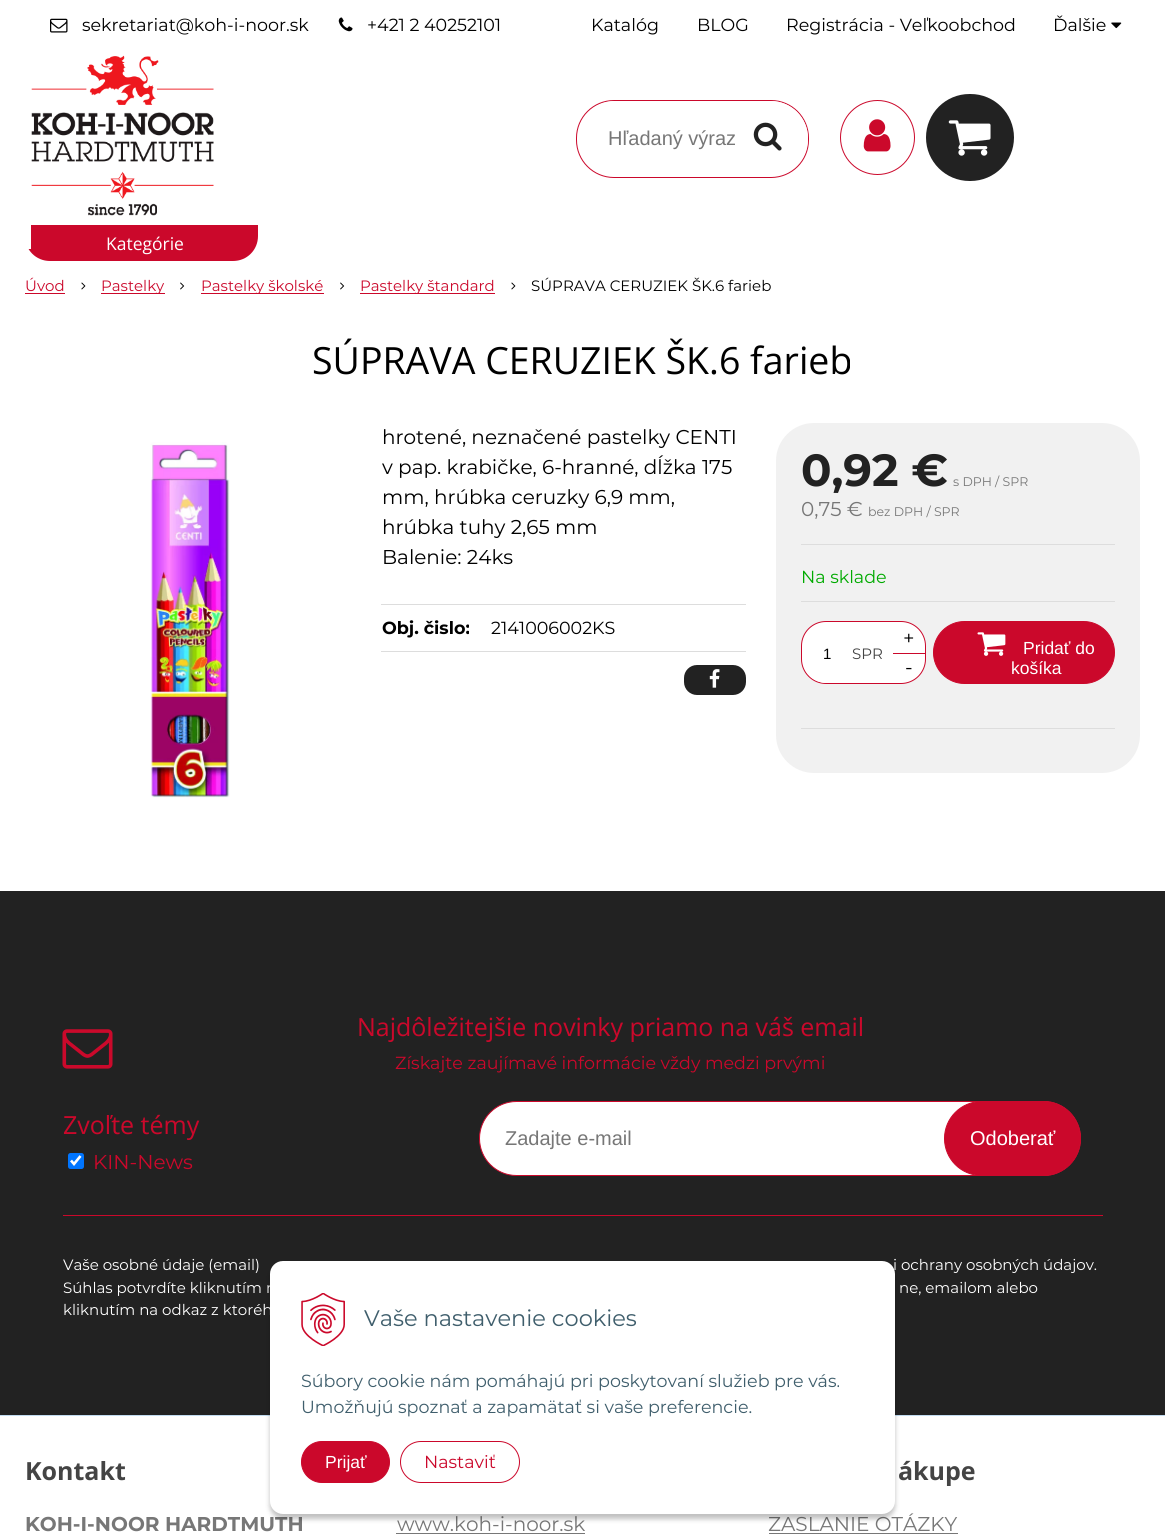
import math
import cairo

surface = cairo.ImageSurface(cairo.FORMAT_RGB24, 1165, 1538)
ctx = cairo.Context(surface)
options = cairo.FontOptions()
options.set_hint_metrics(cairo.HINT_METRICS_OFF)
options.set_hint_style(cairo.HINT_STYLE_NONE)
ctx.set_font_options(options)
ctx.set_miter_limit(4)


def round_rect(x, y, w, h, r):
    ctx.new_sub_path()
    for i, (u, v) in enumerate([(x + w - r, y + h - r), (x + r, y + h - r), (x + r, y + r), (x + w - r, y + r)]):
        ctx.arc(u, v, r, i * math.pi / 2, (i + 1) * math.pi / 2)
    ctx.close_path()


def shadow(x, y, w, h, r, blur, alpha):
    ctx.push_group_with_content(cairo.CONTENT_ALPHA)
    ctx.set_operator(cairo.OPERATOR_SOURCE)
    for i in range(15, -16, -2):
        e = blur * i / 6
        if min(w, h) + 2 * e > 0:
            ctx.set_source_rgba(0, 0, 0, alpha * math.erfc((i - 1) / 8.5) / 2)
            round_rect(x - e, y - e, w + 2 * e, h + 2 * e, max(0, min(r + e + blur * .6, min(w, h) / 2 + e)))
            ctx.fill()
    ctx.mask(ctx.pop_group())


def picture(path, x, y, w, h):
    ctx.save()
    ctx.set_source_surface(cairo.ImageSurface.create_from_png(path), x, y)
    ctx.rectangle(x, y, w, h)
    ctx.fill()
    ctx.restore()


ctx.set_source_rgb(1, 1, 1)
ctx.paint()
picture("img1.png", 50, 18, 18, 15)
ctx.select_font_face("Montserrat")
ctx.set_font_size(17.5)
ctx.set_source_rgb(0, 0, 0)
ctx.move_to(82, 31)
ctx.show_text("sekretariat@koh-i-noor.sk")
picture("img2.png", 338, 17, 15, 15)
ctx.move_to(367, 31)
ctx.show_text("+421 2 40252101")
picture("img3.png", 31, 55, 183, 161)
ctx.move_to(591, 31)
ctx.show_text("Katalóg")
ctx.move_to(697, 31)
ctx.show_text("BLOG")
ctx.move_to(786, 31)
ctx.show_text("Registrácia - Veľkoobchod")
ctx.move_to(1053, 31)
ctx.show_text("Ďalšie")
picture("img4.png", 1111, 22, 11, 7)
round_rect(576.5, 100.5, 232, 77, 37.5)
ctx.set_source_rgb(0.796, 0.035, 0.169)
ctx.set_line_width(1)
ctx.stroke()
ctx.set_source_rgb(1, 1, 1)
round_rect(578, 101, 230, 75, 37.5)
ctx.fill()
ctx.select_font_face("Liberation Sans")
ctx.set_font_size(20)
ctx.set_source_rgb(0.467, 0.467, 0.467)
ctx.move_to(608, 145)
ctx.show_text("Hľadaný výraz")
picture("img5.png", 753, 122, 29, 29)
ctx.arc(877.5, 137.5, 37, 0, 2 * math.pi)
ctx.set_source_rgb(0.796, 0.035, 0.169)
ctx.stroke()
picture("img6.png", 863, 119, 28, 33)
ctx.set_source_rgb(0.133, 0.133, 0.133)
round_rect(926, 94, 88, 87, 43.5)
ctx.fill()
picture("img7.png", 948, 120, 43, 36)
ctx.set_source_rgb(0.796, 0.035, 0.169)
ctx.new_path()
ctx.move_to(25, 225)
ctx.line_to(258, 225)
ctx.line_to(258, 236)
ctx.curve_to(258, 250, 247, 261, 233, 261)
ctx.line_to(50, 261)
ctx.curve_to(36, 261, 25, 250, 25, 236)
ctx.close_path()
ctx.fill()
ctx.set_source_rgb(1, 1, 1)
ctx.rectangle(25, 225, 6, 24)
ctx.fill()
ctx.select_font_face("Open Sans")
ctx.set_font_size(17.5)
ctx.move_to(106, 250)
ctx.show_text("Kategórie")
ctx.select_font_face("Montserrat")
ctx.set_font_size(15)
ctx.set_source_rgb(0.796, 0.035, 0.169)
ctx.move_to(25, 291)
ctx.show_text("Úvod")
ctx.rectangle(25, 293, 40, 1)
ctx.fill()
picture("img8.png", 81, 282, 5, 8)
ctx.rectangle(101, 293, 64, 1)
ctx.fill()
ctx.move_to(101, 291)
ctx.show_text("Pastelky")
picture("img9.png", 180, 282, 5, 8)
ctx.rectangle(201, 293, 123, 1)
ctx.fill()
ctx.move_to(201, 291)
ctx.show_text("Pastelky školské")
picture("img9.png", 340, 282, 5, 8)
ctx.rectangle(360, 293, 135, 1)
ctx.fill()
ctx.move_to(360, 291)
ctx.show_text("Pastelky štandard")
picture("img8.png", 511, 282, 5, 8)
ctx.set_source_rgb(0, 0, 0)
ctx.move_to(531, 291)
ctx.show_text("SÚPRAVA CERUZIEK ŠK.6 farieb")
ctx.select_font_face("Open Sans")
ctx.set_font_size(37.5)
ctx.move_to(312, 374)
ctx.show_text("SÚPRAVA CERUZIEK ŠK.6 farieb")
picture("img10.png", 150, 442, 80, 356)
ctx.select_font_face("Montserrat")
ctx.set_font_size(20)
ctx.move_to(382, 444)
ctx.show_text("hrotené, neznačené pastelky CENTI")
ctx.move_to(382, 474)
ctx.show_text("v pap. krabičke, 6-hranné, dĺžka 175")
ctx.move_to(382, 504)
ctx.show_text("mm, hrúbka ceruzky 6,9 mm,")
ctx.move_to(382, 534)
ctx.show_text("hrúbka tuhy 2,65 mm")
ctx.move_to(382, 564)
ctx.show_text("Balenie: 24ks")
ctx.set_source_rgb(0.867, 0.867, 0.867)
ctx.rectangle(381, 651, 365, 1)
ctx.fill()
ctx.rectangle(381, 604, 365, 1)
ctx.fill()
ctx.select_font_face("Montserrat", cairo.FONT_SLANT_NORMAL, cairo.FONT_WEIGHT_BOLD)
ctx.set_font_size(17.5)
ctx.set_source_rgb(0, 0, 0)
ctx.move_to(382, 634)
ctx.show_text("Obj. čislo:")
ctx.select_font_face("Montserrat")
ctx.move_to(491, 634)
ctx.show_text("2141006002KS")
ctx.set_source_rgb(0.133, 0.133, 0.133)
round_rect(684, 665, 62, 30, 13)
ctx.fill()
picture("img11.png", 709, 669, 11, 19)
ctx.set_source_rgb(0.945, 0.945, 0.945)
round_rect(776, 423, 364, 350, 38)
ctx.fill()
ctx.set_source_rgb(0.867, 0.867, 0.867)
ctx.rectangle(801, 544, 314, 1)
ctx.fill()
ctx.select_font_face("Montserrat", cairo.FONT_SLANT_NORMAL, cairo.FONT_WEIGHT_BOLD)
ctx.set_font_size(45)
ctx.set_source_rgb(0.133, 0.133, 0.133)
ctx.move_to(801, 486)
ctx.show_text("0,92 €")
ctx.select_font_face("Montserrat")
ctx.set_font_size(12.5)
ctx.set_source_rgb(0.467, 0.467, 0.467)
ctx.move_to(953, 486)
ctx.show_text("s DPH / SPR")
ctx.set_font_size(20)
ctx.move_to(801, 516)
ctx.show_text("0,75 €")
ctx.set_font_size(12.5)
ctx.move_to(868, 516)
ctx.show_text("bez DPH / SPR")
ctx.set_source_rgb(0.867, 0.867, 0.867)
ctx.rectangle(801, 601, 314, 1)
ctx.fill()
ctx.set_font_size(17.5)
ctx.set_source_rgb(0, 0.667, 0)
ctx.move_to(801, 583)
ctx.show_text("Na sklade")
ctx.set_source_rgb(1, 1, 1)
round_rect(801.5, 621.5, 124, 62, 24.5)
ctx.fill_preserve()
ctx.set_source_rgb(0.796, 0.035, 0.169)
ctx.stroke()
ctx.rectangle(893, 653, 32, 1)
ctx.fill()
ctx.set_font_size(20)
ctx.set_source_rgb(0, 0, 0)
ctx.move_to(903, 645)
ctx.show_text("+")
ctx.set_source_rgb(1, 1, 1)
ctx.new_path()
ctx.move_to(827, 623)
ctx.line_to(853, 623)
ctx.line_to(853, 683)
ctx.line_to(827, 683)
ctx.curve_to(813.5, 683, 803, 672.5, 803, 659)
ctx.line_to(803, 647)
ctx.curve_to(803, 633.5, 813.5, 623, 827, 623)
ctx.close_path()
ctx.fill()
ctx.select_font_face("Liberation Sans")
ctx.set_font_size(15)
ctx.set_source_rgb(0, 0, 0)
ctx.move_to(823, 659)
ctx.show_text("1")
ctx.select_font_face("Montserrat")
ctx.set_source_rgb(0.267, 0.267, 0.267)
ctx.move_to(852, 659)
ctx.show_text("SPR")
ctx.set_font_size(20)
ctx.set_source_rgb(0, 0, 0)
ctx.move_to(905, 674)
ctx.show_text("-")
ctx.set_source_rgb(0.796, 0.035, 0.169)
round_rect(933.5, 621.5, 181, 62, 31)
ctx.fill_preserve()
ctx.stroke()
picture("img12.png", 977, 632, 29, 24)
ctx.select_font_face("Liberation Sans")
ctx.set_font_size(17.5)
ctx.set_source_rgb(1, 1, 1)
ctx.move_to(1023, 654)
ctx.show_text("Pridať do")
ctx.move_to(1011, 674)
ctx.show_text("košíka")
ctx.set_source_rgb(0.867, 0.867, 0.867)
ctx.rectangle(801, 728, 314, 1)
ctx.fill()
ctx.set_source_rgb(0.757, 0.859, 0.941)
ctx.rectangle(0, 1415, 1165, 1)
ctx.fill()
ctx.set_source_rgb(0.133, 0.133, 0.133)
ctx.rectangle(0, 891, 1165, 524)
ctx.fill()
picture("img13.png", 62, 1029, 51, 40)
ctx.select_font_face("Open Sans")
ctx.set_font_size(25)
ctx.set_source_rgb(0.796, 0.035, 0.169)
ctx.move_to(357, 1036)
ctx.show_text("Najdôležitejšie novinky priamo na váš email")
ctx.select_font_face("Montserrat")
ctx.set_font_size(17.5)
ctx.move_to(395, 1069)
ctx.show_text("Získajte zaujímavé informácie vždy medzi prvými")
ctx.select_font_face("Open Sans")
ctx.set_font_size(25)
ctx.move_to(63, 1134)
ctx.show_text("Zvoľte témy")
ctx.set_source_rgb(0, 0.459, 1)
round_rect(68, 1153, 16, 16, 2.5)
ctx.fill()
ctx.new_path()
ctx.move_to(71, 1160.5)
ctx.line_to(74, 1164)
ctx.line_to(80.5, 1156)
ctx.set_source_rgb(1, 1, 1)
ctx.set_line_width(2.6)
ctx.stroke()
ctx.select_font_face("Montserrat")
ctx.set_font_size(20)
ctx.set_source_rgb(0.796, 0.035, 0.169)
ctx.move_to(93, 1169)
ctx.show_text("KIN-News")
ctx.set_source_rgb(1, 1, 1)
round_rect(479.5, 1101.5, 601, 74, 37)
ctx.fill_preserve()
ctx.set_source_rgb(0.796, 0.035, 0.169)
ctx.set_line_width(1)
ctx.stroke()
ctx.select_font_face("Liberation Sans")
ctx.set_source_rgb(0.467, 0.467, 0.467)
ctx.move_to(505, 1145)
ctx.show_text("Zadajte e-mail")
ctx.set_source_rgb(0.796, 0.035, 0.169)
round_rect(944.5, 1101.5, 136, 74, 37)
ctx.fill_preserve()
ctx.stroke()
ctx.set_source_rgb(1, 1, 1)
ctx.move_to(970, 1145)
ctx.show_text("Odoberať")
ctx.set_source_rgb(0.796, 0.035, 0.169)
ctx.rectangle(63, 1215, 1040, 1)
ctx.fill()
ctx.select_font_face("Montserrat")
ctx.set_font_size(15)
ctx.set_source_rgb(1, 1, 1)
ctx.move_to(63, 1270)
ctx.show_text("Vaše osobné údaje (email)")
ctx.move_to(893, 1270)
ctx.show_text("i ochrany osobných údajov.")
ctx.move_to(63, 1293)
ctx.show_text("Súhlas potvrdíte kliknutím n")
ctx.move_to(899, 1293)
ctx.show_text("ne, emailom alebo")
ctx.move_to(63, 1315)
ctx.show_text("kliknutím na odkaz z ktoréh")
ctx.select_font_face("Open Sans", cairo.FONT_SLANT_NORMAL, cairo.FONT_WEIGHT_BOLD)
ctx.set_font_size(25)
ctx.set_source_rgb(0.267, 0.267, 0.267)
ctx.move_to(25, 1480)
ctx.show_text("Kontakt")
ctx.select_font_face("Montserrat", cairo.FONT_SLANT_NORMAL, cairo.FONT_WEIGHT_BOLD)
ctx.set_font_size(20)
ctx.set_source_rgb(0.467, 0.467, 0.467)
ctx.move_to(25, 1531)
ctx.show_text("KOH-I-NOOR HARDTMUTH")
ctx.select_font_face("Montserrat")
ctx.move_to(397, 1531)
ctx.show_text("www.koh-i-noor.sk")
ctx.rectangle(396, 1533, 189, 1)
ctx.fill()
ctx.select_font_face("Open Sans", cairo.FONT_SLANT_NORMAL, cairo.FONT_WEIGHT_BOLD)
ctx.set_font_size(25)
ctx.set_source_rgb(0.267, 0.267, 0.267)
ctx.move_to(898, 1480)
ctx.show_text("ákupe")
ctx.select_font_face("Montserrat")
ctx.set_font_size(20)
ctx.set_source_rgb(0.467, 0.467, 0.467)
ctx.move_to(768, 1531)
ctx.show_text("ZASLANIE OTÁZKY")
ctx.rectangle(769, 1533, 189, 1)
ctx.fill()
ctx.set_source_rgb(0, 0, 0)
shadow(270, 1266, 625, 253, 13, 2.5, 0.25)
ctx.set_source_rgb(1, 1, 1)
round_rect(270, 1261, 625, 253, 13)
ctx.fill()
picture("img14.png", 301, 1293, 44, 53)
ctx.set_font_size(22.5)
ctx.set_source_rgb(0.247, 0.369, 0.424)
ctx.move_to(364, 1326)
ctx.show_text("Vaše nastavenie cookies")
ctx.set_font_size(17.5)
ctx.move_to(301, 1387)
ctx.show_text("Súbory cookie nám pomáhajú pri poskytovaní služieb pre vás.")
ctx.move_to(301, 1413)
ctx.show_text("Umožňujú spoznať a zapamätať si vaše preferencie.")
ctx.set_source_rgb(0.796, 0.035, 0.169)
round_rect(301.5, 1441.5, 88, 41, 20.5)
ctx.fill_preserve()
ctx.stroke()
ctx.select_font_face("Liberation Sans")
ctx.set_source_rgb(1, 1, 1)
ctx.move_to(325, 1468)
ctx.show_text("Prijať")
round_rect(400.5, 1441.5, 119, 41, 20.5)
ctx.set_source_rgb(0.796, 0.035, 0.169)
ctx.stroke()
ctx.select_font_face("Montserrat")
ctx.move_to(424, 1468)
ctx.show_text("Nastaviť")
surface.write_to_png("page.png")
